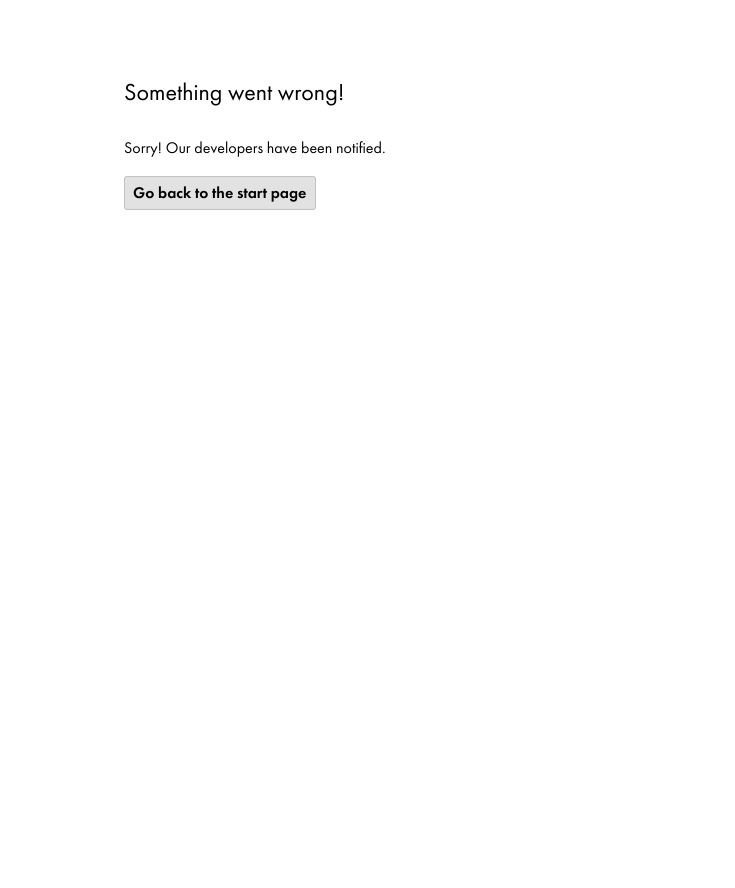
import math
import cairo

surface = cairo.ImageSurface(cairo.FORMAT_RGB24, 735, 888)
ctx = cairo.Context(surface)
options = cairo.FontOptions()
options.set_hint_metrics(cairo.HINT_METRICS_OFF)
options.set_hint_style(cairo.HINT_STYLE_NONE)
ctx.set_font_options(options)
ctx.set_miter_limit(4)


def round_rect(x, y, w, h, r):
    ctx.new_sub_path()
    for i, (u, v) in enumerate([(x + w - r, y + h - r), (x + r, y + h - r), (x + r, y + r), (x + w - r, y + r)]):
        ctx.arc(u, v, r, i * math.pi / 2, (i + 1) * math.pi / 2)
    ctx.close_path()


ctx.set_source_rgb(1, 1, 1)
ctx.paint()
ctx.select_font_face("Futura PT")
ctx.set_font_size(24)
ctx.set_source_rgb(0, 0, 0)
ctx.move_to(124, 100)
ctx.show_text("Something went wrong!")
ctx.set_font_size(16)
ctx.move_to(124, 153)
ctx.show_text("Sorry! Our developers have been notified.")
ctx.set_source_rgb(0.886, 0.886, 0.886)
round_rect(124.5, 176.5, 191, 33, 2.5)
ctx.fill_preserve()
ctx.set_source_rgb(0.765, 0.765, 0.765)
ctx.set_line_width(1)
ctx.stroke()
ctx.select_font_face("Futura PT Medium")
ctx.set_source_rgb(0, 0, 0)
ctx.move_to(133, 198)
ctx.show_text("Go back to the start page")
surface.write_to_png("page.png")
